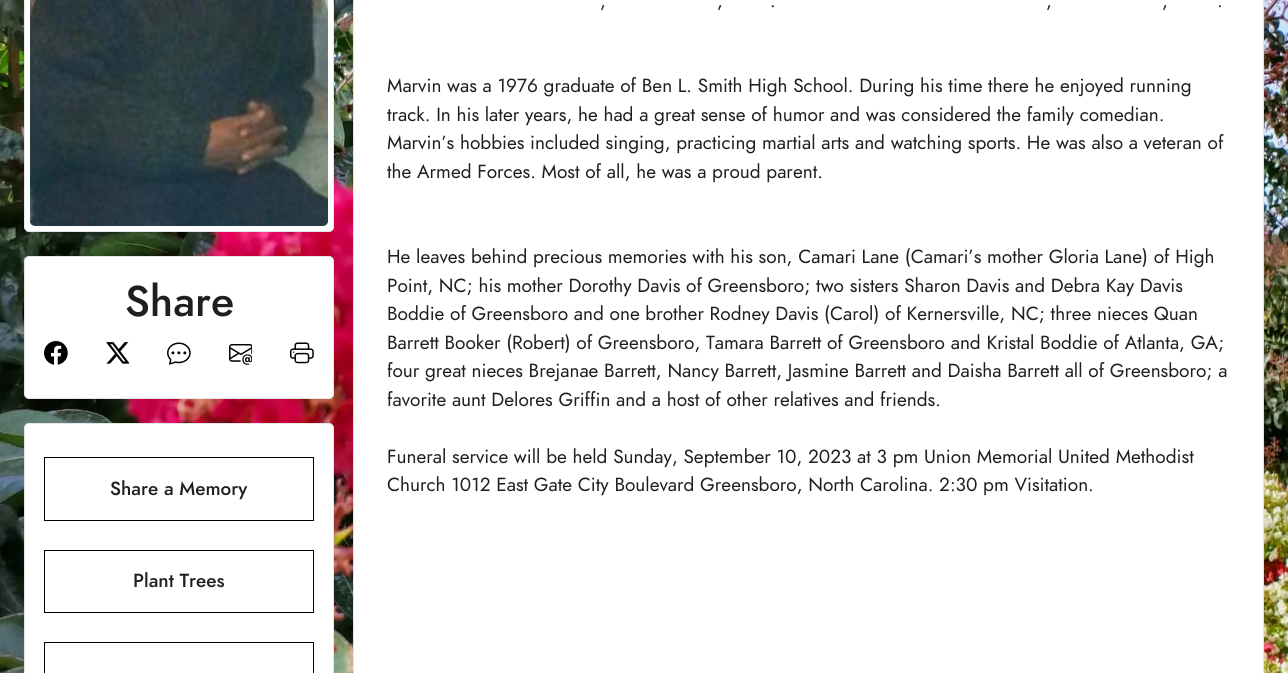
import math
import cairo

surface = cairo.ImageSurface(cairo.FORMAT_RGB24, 1288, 673)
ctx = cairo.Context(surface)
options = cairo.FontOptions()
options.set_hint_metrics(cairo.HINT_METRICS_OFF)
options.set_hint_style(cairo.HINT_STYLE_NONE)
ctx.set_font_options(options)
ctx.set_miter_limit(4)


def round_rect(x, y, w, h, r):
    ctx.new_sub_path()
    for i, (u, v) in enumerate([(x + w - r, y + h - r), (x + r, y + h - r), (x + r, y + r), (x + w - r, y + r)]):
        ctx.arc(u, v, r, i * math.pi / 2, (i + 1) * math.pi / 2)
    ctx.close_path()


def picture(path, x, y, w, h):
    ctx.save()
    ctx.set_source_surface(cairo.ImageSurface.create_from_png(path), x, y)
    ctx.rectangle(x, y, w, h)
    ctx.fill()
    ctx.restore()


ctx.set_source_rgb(1, 1, 1)
ctx.paint()
picture("img1.png", 0, 0, 1288, 673)
ctx.set_source_rgb(1, 1, 1)
round_rect(24.5, -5.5, 309, 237, 4.5)
ctx.fill_preserve()
ctx.set_source_rgb(0.898, 0.898, 0.898)
ctx.set_line_width(1)
ctx.stroke()
picture("img2.png", 30, 0, 298, 226)
ctx.set_source_rgb(1, 1, 1)
round_rect(24.5, 256.5, 309, 142, 4.5)
ctx.fill_preserve()
ctx.set_source_rgb(0.898, 0.898, 0.898)
ctx.stroke()
ctx.select_font_face("Jost Medium")
ctx.set_font_size(43)
ctx.set_source_rgb(0.122, 0.122, 0.122)
ctx.move_to(125, 316)
ctx.show_text("Share")
picture("img3.png", 44, 341, 24, 24)
picture("img4.png", 106, 342, 23, 22)
picture("img5.png", 167, 342, 24, 23)
picture("img6.png", 229, 344, 23, 21)
picture("img7.png", 290, 342, 24, 22)
ctx.set_source_rgb(1, 1, 1)
round_rect(24.5, 423.5, 309, 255, 4.5)
ctx.fill_preserve()
ctx.set_source_rgb(0.898, 0.898, 0.898)
ctx.stroke()
ctx.rectangle(44.5, 457.5, 269, 63)
ctx.set_source_rgb(0, 0, 0)
ctx.stroke()
ctx.set_font_size(19)
ctx.set_source_rgb(0.122, 0.122, 0.122)
ctx.move_to(110, 495)
ctx.show_text("Share a Memory")
ctx.rectangle(44.5, 550.5, 269, 62)
ctx.set_source_rgb(0, 0, 0)
ctx.stroke()
ctx.set_source_rgb(0.122, 0.122, 0.122)
ctx.move_to(133, 587)
ctx.show_text("Plant Trees")
ctx.rectangle(44.5, 642.5, 269, 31)
ctx.set_source_rgb(0, 0, 0)
ctx.stroke()
ctx.set_source_rgb(1, 1, 1)
ctx.rectangle(353.5, -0.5, 910, 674)
ctx.fill_preserve()
ctx.set_source_rgb(0.898, 0.898, 0.898)
ctx.stroke()
ctx.select_font_face("Jost")
ctx.set_source_rgb(0.122, 0.122, 0.122)
ctx.move_to(600, 7)
ctx.show_text(",")
ctx.move_to(717, 7)
ctx.show_text(",")
ctx.move_to(770, 7)
ctx.show_text(".")
ctx.move_to(1046, 7)
ctx.show_text(",")
ctx.move_to(1162, 7)
ctx.show_text(",")
ctx.move_to(1217, 7)
ctx.show_text(".")
ctx.move_to(387, 92)
ctx.show_text("Marvin was a 1976 graduate of Ben L. Smith High School. During his time there he enjoyed running")
ctx.move_to(387, 121)
ctx.show_text("track. In his later years, he had a great sense of humor and was considered the family comedian.")
ctx.move_to(387, 149)
ctx.show_text("Marvin’s hobbies included singing, practicing martial arts and watching sports. He was also a veteran of")
ctx.move_to(387, 178)
ctx.show_text("the Armed Forces. Most of all, he was a proud parent.")
ctx.move_to(387, 263)
ctx.show_text("He leaves behind precious memories with his son, Camari Lane (Camari’s mother Gloria Lane) of High")
ctx.move_to(387, 292)
ctx.show_text("Point, NC; his mother Dorothy Davis of Greensboro; two sisters Sharon Davis and Debra Kay Davis")
ctx.move_to(387, 320)
ctx.show_text("Boddie of Greensboro and one brother Rodney Davis (Carol) of Kernersville, NC; three nieces Quan")
ctx.move_to(387, 349)
ctx.show_text("Barrett Booker (Robert) of Greensboro, Tamara Barrett of Greensboro and Kristal Boddie of Atlanta, GA;")
ctx.move_to(387, 377)
ctx.show_text("four great nieces Brejanae Barrett, Nancy Barrett, Jasmine Barrett and Daisha Barrett all of Greensboro; a")
ctx.move_to(387, 406)
ctx.show_text("favorite aunt Delores Griffin and a host of other relatives and friends.")
ctx.move_to(387, 463)
ctx.show_text("Funeral service will be held Sunday, September 10, 2023 at 3 pm Union Memorial United Methodist")
ctx.move_to(387, 491)
ctx.show_text("Church 1012 East Gate City Boulevard Greensboro, North Carolina. 2:30 pm Visitation.")
surface.write_to_png("page.png")
